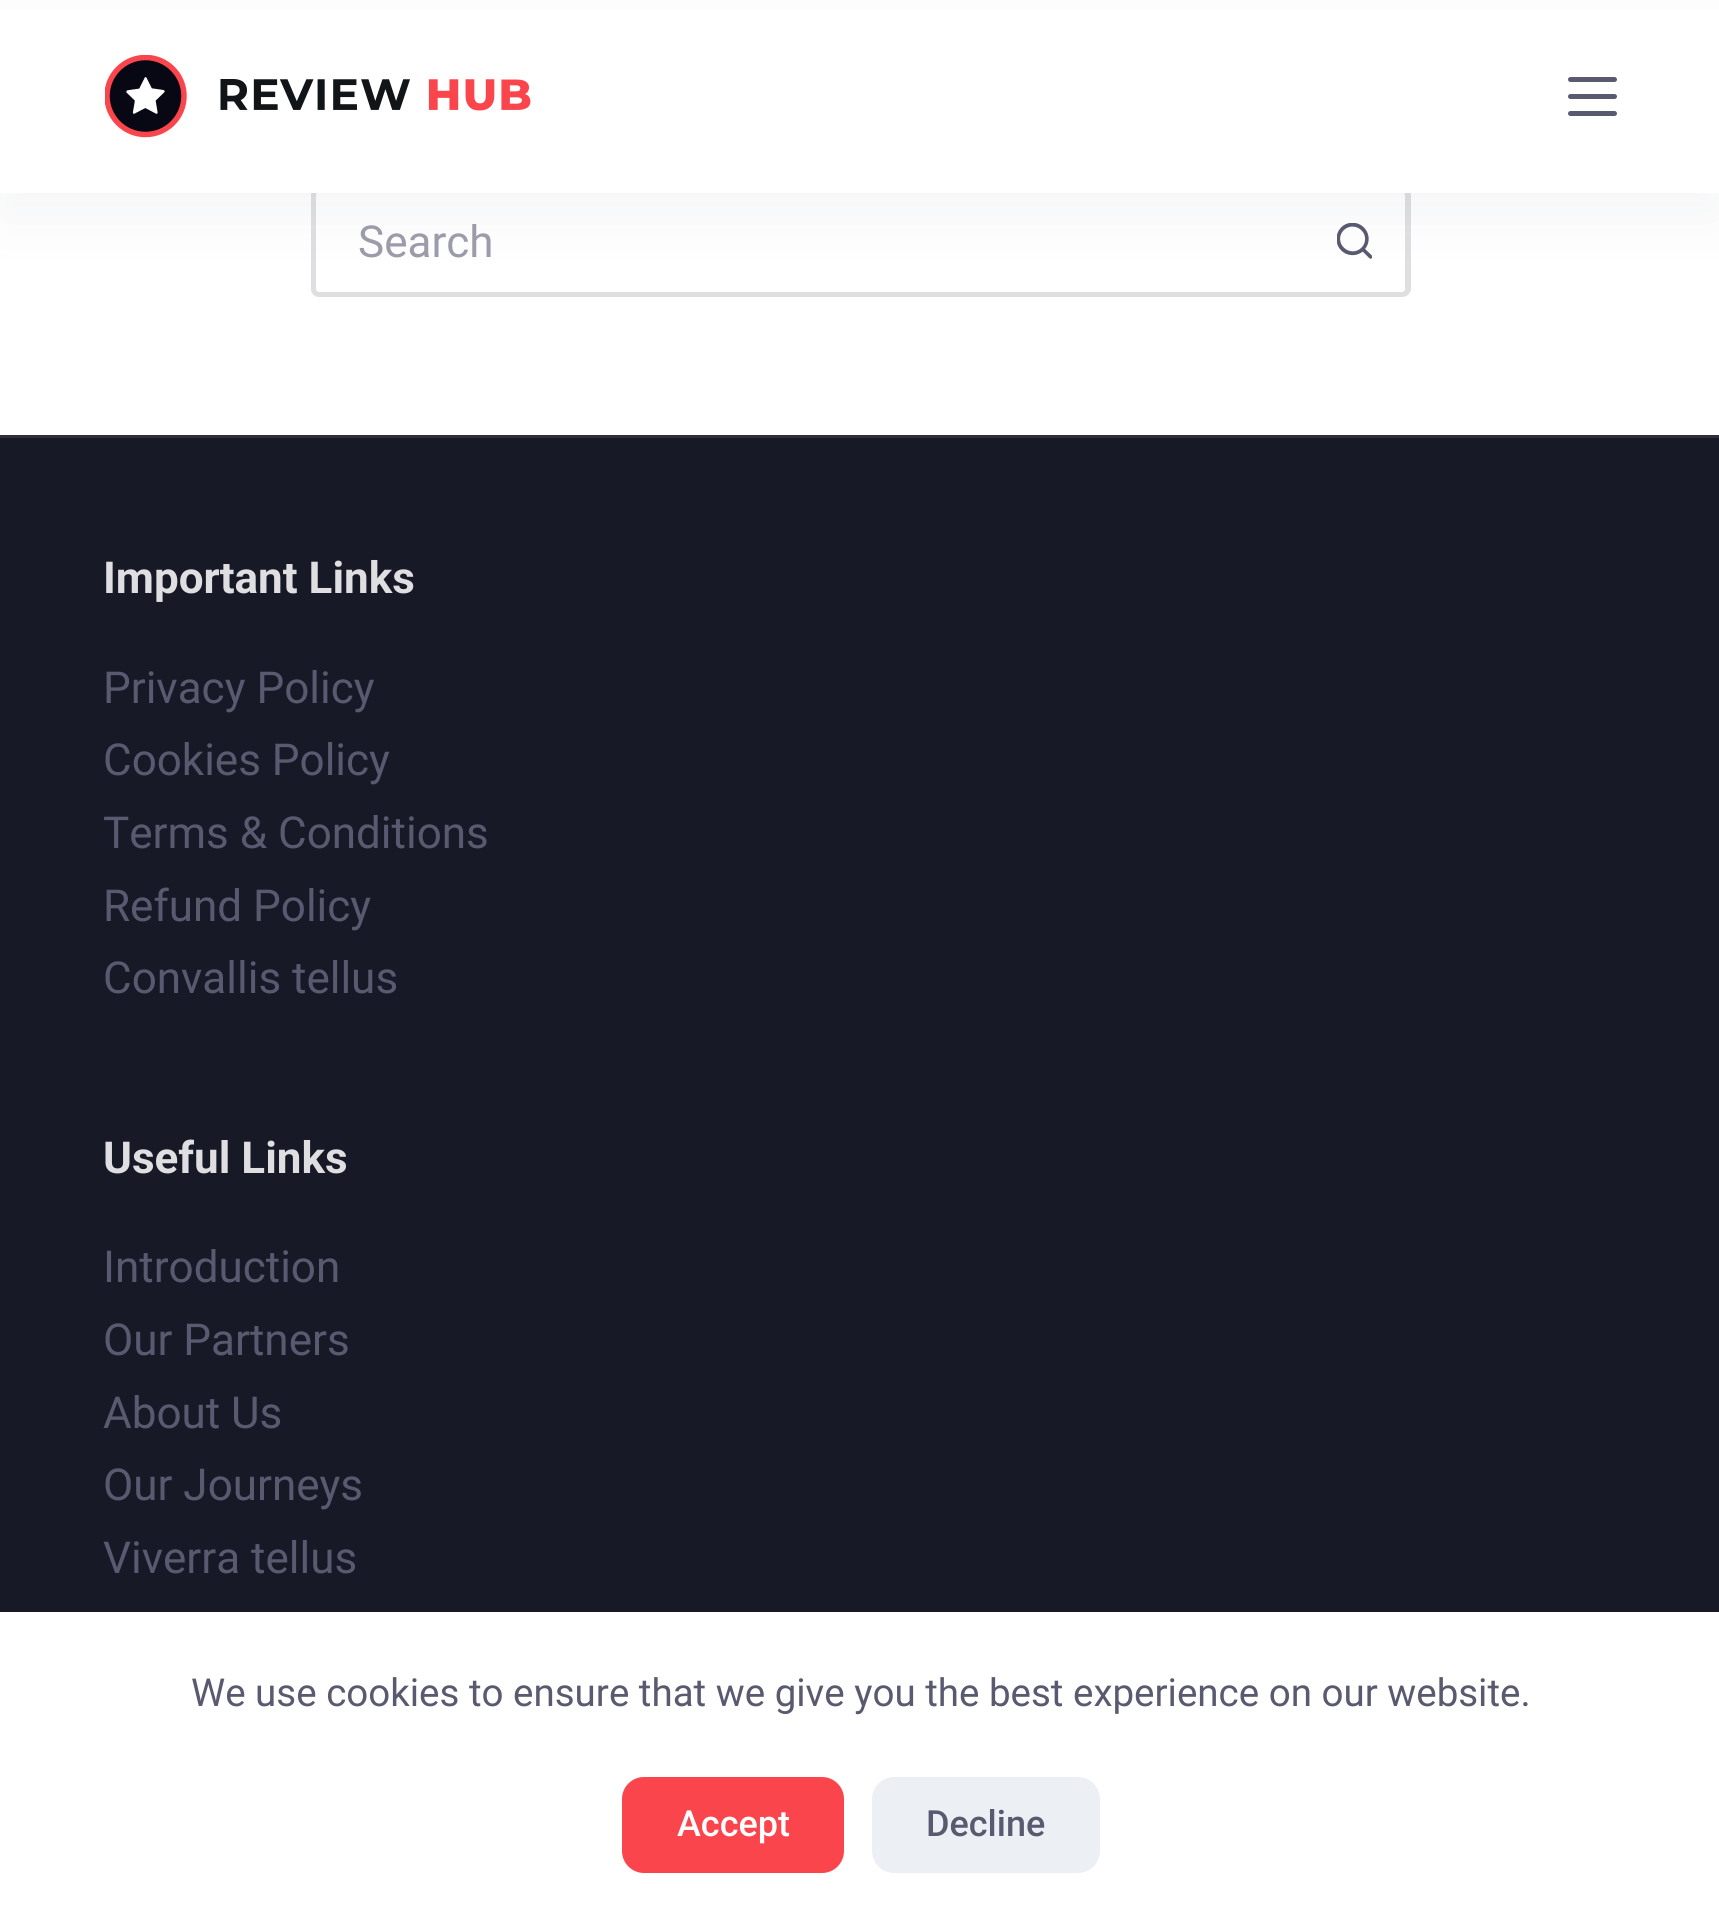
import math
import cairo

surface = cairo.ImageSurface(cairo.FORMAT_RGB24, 1719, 1926)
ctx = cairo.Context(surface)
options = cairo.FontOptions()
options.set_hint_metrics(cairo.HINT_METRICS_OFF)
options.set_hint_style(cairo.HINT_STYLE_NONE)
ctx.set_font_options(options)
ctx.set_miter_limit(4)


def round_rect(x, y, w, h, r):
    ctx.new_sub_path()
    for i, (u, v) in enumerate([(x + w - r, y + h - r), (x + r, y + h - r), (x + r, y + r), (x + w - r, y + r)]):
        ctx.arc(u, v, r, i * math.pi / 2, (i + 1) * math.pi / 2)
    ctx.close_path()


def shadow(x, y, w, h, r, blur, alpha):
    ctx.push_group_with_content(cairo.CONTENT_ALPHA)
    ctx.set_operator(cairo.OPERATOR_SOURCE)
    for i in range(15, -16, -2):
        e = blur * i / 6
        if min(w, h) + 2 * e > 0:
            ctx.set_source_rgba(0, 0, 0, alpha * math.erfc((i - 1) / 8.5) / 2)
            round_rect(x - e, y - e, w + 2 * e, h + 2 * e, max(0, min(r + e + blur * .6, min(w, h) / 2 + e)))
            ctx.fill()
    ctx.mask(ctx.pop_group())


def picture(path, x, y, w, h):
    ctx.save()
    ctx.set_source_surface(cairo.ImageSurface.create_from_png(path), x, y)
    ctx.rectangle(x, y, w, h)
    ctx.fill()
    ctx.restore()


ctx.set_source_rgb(1, 1, 1)
ctx.paint()
ctx.set_source_rgb(0.875, 0.875, 0.886)
ctx.set_fill_rule(cairo.FILL_RULE_EVEN_ODD)
ctx.new_path()
ctx.move_to(319, 187)
ctx.line_to(1301, 187)
ctx.line_to(1301, 297)
ctx.line_to(319, 297)
ctx.curve_to(314, 297, 311, 293, 311, 289)
ctx.line_to(311, 195)
ctx.curve_to(311, 191, 314, 187, 319, 187)
ctx.close_path()
ctx.move_to(319, 192)
ctx.line_to(1301, 192)
ctx.line_to(1301, 292)
ctx.line_to(319, 292)
ctx.curve_to(317, 292, 316, 290, 316, 289)
ctx.line_to(316, 195)
ctx.curve_to(316, 194, 317, 192, 319, 192)
ctx.close_path()
ctx.fill()
ctx.new_path()
ctx.move_to(1301, 187)
ctx.line_to(1402, 187)
ctx.curve_to(1407, 187, 1411, 191, 1411, 195)
ctx.line_to(1411, 289)
ctx.curve_to(1411, 293, 1407, 297, 1402, 297)
ctx.line_to(1301, 297)
ctx.close_path()
ctx.move_to(1301, 192)
ctx.line_to(1402, 192)
ctx.curve_to(1404, 192, 1405, 194, 1405, 195)
ctx.line_to(1405, 289)
ctx.curve_to(1405, 290, 1404, 292, 1402, 292)
ctx.line_to(1301, 292)
ctx.close_path()
ctx.fill()
picture("img2.png", 1337, 223, 35, 36)
ctx.set_source_rgb(0.173, 0.243, 0.314)
shadow(0, 28, 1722, 192, 0, 27.5, 0.05)
ctx.set_source_rgb(1, 1, 1)
ctx.rectangle(0, 9, 1719, 184)
ctx.fill()
picture("img1.png", 105, 55, 426, 83)
ctx.set_source_rgb(0.349, 0.349, 0.439)
round_rect(1568, 77, 49, 5, 2.5)
ctx.fill()
round_rect(1568, 94, 49, 5, 2.5)
ctx.fill()
round_rect(1568, 111, 49, 5, 2.5)
ctx.fill()
ctx.select_font_face("Roboto")
ctx.set_font_size(44)
ctx.set_source_rgb(0.608, 0.608, 0.663)
ctx.move_to(358, 257)
ctx.show_text("Search")
ctx.set_source_rgb(0.09, 0.098, 0.153)
ctx.rectangle(0, 438, 1719, 1174)
ctx.fill()
ctx.set_source_rgb(0.18, 0.188, 0.239)
ctx.rectangle(0, 435, 1719, 3)
ctx.fill()
ctx.select_font_face("Roboto", cairo.FONT_SLANT_NORMAL, cairo.FONT_WEIGHT_BOLD)
ctx.set_source_rgb(0.875, 0.875, 0.886)
ctx.move_to(103, 593)
ctx.show_text("Important Links")
ctx.select_font_face("Roboto")
ctx.set_source_rgb(0.349, 0.349, 0.439)
ctx.move_to(103, 703)
ctx.show_text("Privacy Policy")
ctx.move_to(103, 775)
ctx.show_text("Cookies Policy")
ctx.move_to(103, 848)
ctx.show_text("Terms & Conditions")
ctx.move_to(103, 921)
ctx.show_text("Refund Policy")
ctx.move_to(103, 993)
ctx.show_text("Convallis tellus")
ctx.select_font_face("Roboto", cairo.FONT_SLANT_NORMAL, cairo.FONT_WEIGHT_BOLD)
ctx.set_source_rgb(0.875, 0.875, 0.886)
ctx.move_to(103, 1173)
ctx.show_text("Useful Links")
ctx.select_font_face("Roboto")
ctx.set_source_rgb(0.349, 0.349, 0.439)
ctx.move_to(103, 1282)
ctx.show_text("Introduction")
ctx.move_to(103, 1355)
ctx.show_text("Our Partners")
ctx.move_to(103, 1428)
ctx.show_text("About Us")
ctx.move_to(103, 1500)
ctx.show_text("Our Journeys")
ctx.move_to(103, 1573)
ctx.show_text("Viverra tellus")
ctx.set_font_size(38.5)
ctx.move_to(191, 1706)
ctx.show_text("We use cookies to ensure that we give you the best experience on our website.")
ctx.set_source_rgb(0.984, 0.271, 0.298)
round_rect(622, 1777, 222, 96, 22)
ctx.fill()
ctx.select_font_face("Roboto Medium")
ctx.set_font_size(36)
ctx.set_source_rgb(1, 1, 1)
ctx.move_to(677, 1836)
ctx.show_text("Accept")
ctx.set_source_rgb(0.925, 0.937, 0.953)
round_rect(872, 1777, 228, 96, 22)
ctx.fill()
ctx.set_source_rgb(0.349, 0.349, 0.439)
ctx.move_to(926, 1836)
ctx.show_text("Decline")
surface.write_to_png("page.png")
